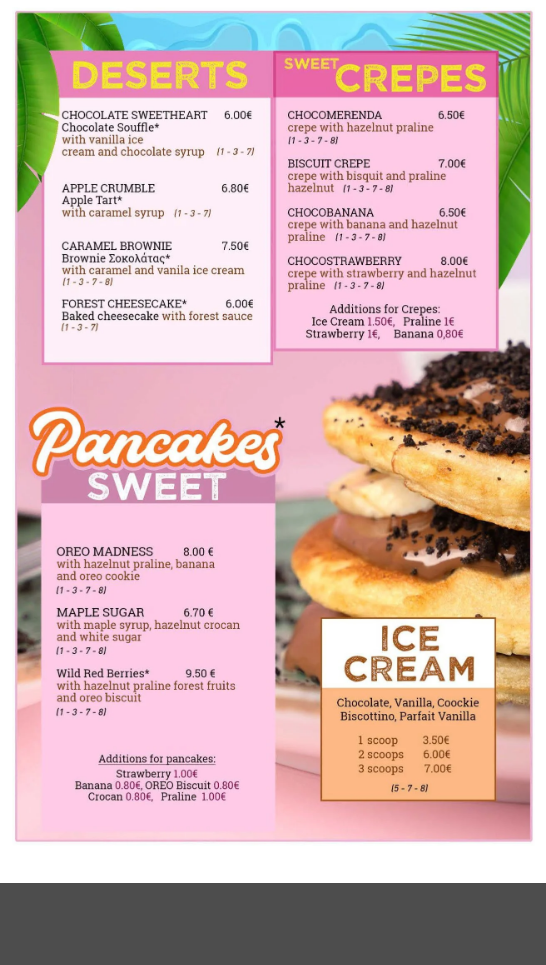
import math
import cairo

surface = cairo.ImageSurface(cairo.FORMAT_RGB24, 546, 965)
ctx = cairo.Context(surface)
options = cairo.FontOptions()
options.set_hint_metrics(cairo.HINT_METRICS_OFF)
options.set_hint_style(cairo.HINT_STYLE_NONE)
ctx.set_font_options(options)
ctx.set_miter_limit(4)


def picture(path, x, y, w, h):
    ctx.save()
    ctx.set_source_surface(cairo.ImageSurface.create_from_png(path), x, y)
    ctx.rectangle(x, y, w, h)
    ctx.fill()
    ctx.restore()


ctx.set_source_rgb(0.302, 0.302, 0.302)
ctx.paint()
ctx.set_source_rgb(1, 1, 1)
ctx.rectangle(0, 0, 546, 883)
ctx.fill()
picture("img1.png", 12, 7, 523, 839)
surface.write_to_png("page.png")
